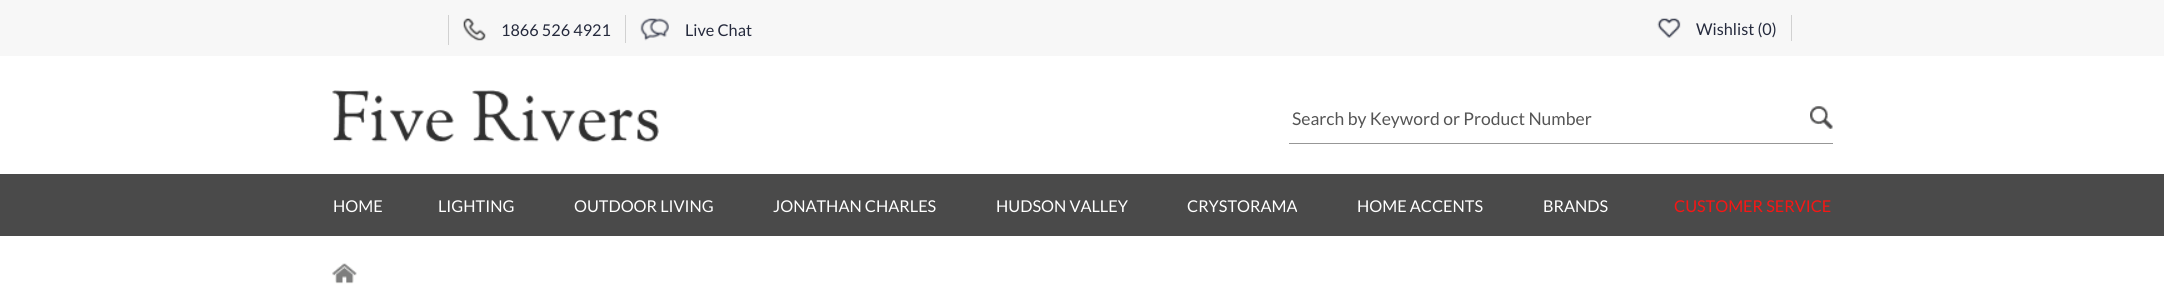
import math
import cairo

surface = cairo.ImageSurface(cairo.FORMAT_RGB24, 2164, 305)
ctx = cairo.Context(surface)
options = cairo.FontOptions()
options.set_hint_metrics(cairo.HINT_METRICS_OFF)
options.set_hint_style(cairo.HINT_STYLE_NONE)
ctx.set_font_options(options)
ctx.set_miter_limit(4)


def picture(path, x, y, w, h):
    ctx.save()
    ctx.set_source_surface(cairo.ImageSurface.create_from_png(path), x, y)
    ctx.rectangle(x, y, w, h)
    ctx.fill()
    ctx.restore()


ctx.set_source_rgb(1, 1, 1)
ctx.paint()
ctx.set_source_rgb(0.965, 0.965, 0.965)
ctx.rectangle(0, 0, 2164, 56)
ctx.fill()
ctx.set_source_rgb(0.82, 0.82, 0.82)
ctx.rectangle(448, 15, 1, 30)
ctx.fill()
ctx.rectangle(625, 15, 1, 28)
ctx.fill()
picture("img1.png", 463, 18, 23, 23)
ctx.select_font_face("Lato")
ctx.set_font_size(16.25)
ctx.set_source_rgb(0.145, 0.165, 0.239)
ctx.move_to(501, 36)
ctx.show_text("1866 526 4921")
picture("img2.png", 640, 18, 29, 23)
ctx.move_to(685, 36)
ctx.show_text("Live Chat")
ctx.set_source_rgb(0.82, 0.82, 0.82)
ctx.rectangle(1791, 15, 1, 26)
ctx.fill()
picture("img3.png", 1657, 18, 24, 20)
ctx.set_source_rgb(0.145, 0.165, 0.239)
ctx.move_to(1696, 35)
ctx.show_text("Wishlist (0)")
picture("img4.png", 332, 90, 327, 52)
ctx.set_source_rgb(0.592, 0.592, 0.592)
ctx.rectangle(1289, 143, 544, 1)
ctx.fill()
ctx.set_font_size(17.5)
ctx.set_source_rgb(0.333, 0.333, 0.333)
ctx.move_to(1292, 125)
ctx.show_text("Search by Keyword or Product Number")
picture("img5.png", 1810, 106, 23, 23)
ctx.set_source_rgb(0.29, 0.29, 0.29)
ctx.rectangle(0, 174, 2164, 62)
ctx.fill()
ctx.set_font_size(16.25)
ctx.set_source_rgb(1, 1, 1)
ctx.move_to(333, 212)
ctx.show_text("HOME")
ctx.move_to(438, 212)
ctx.show_text("LIGHTING")
ctx.move_to(574, 212)
ctx.show_text("OUTDOOR LIVING")
ctx.move_to(773, 212)
ctx.show_text("JONATHAN CHARLES")
ctx.move_to(996, 212)
ctx.show_text("HUDSON VALLEY")
ctx.move_to(1187, 212)
ctx.show_text("CRYSTORAMA")
ctx.move_to(1357, 212)
ctx.show_text("HOME ACCENTS")
ctx.move_to(1543, 212)
ctx.show_text("BRANDS")
ctx.set_source_rgb(0.965, 0.086, 0.082)
ctx.move_to(1674, 212)
ctx.show_text("CUSTOMER SERVICE")
picture("img6.png", 332, 263, 25, 21)
surface.write_to_png("page.png")
